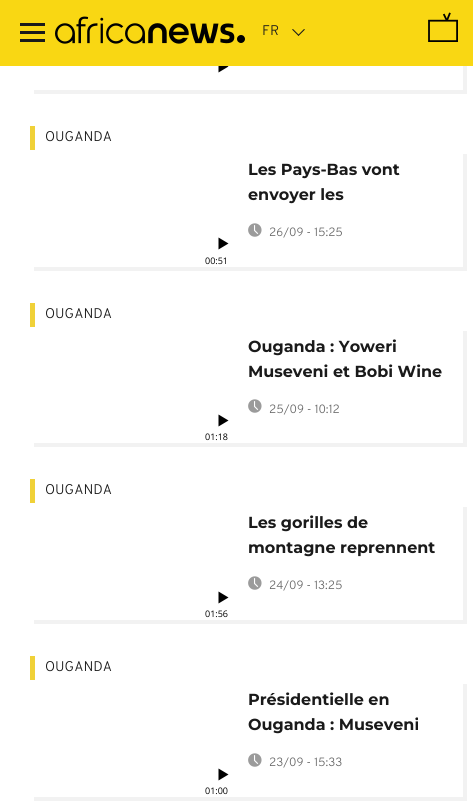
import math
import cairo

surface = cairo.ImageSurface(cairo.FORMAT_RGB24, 473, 801)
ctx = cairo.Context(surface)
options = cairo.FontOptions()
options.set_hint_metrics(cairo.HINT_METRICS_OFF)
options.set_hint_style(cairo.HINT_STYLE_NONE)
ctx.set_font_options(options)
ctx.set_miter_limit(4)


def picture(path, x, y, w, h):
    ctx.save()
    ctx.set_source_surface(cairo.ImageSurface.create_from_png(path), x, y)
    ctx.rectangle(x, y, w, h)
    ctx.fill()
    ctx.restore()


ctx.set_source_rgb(1, 1, 1)
ctx.paint()
ctx.set_source_rgb(0.949, 0.949, 0.949)
ctx.new_path()
ctx.move_to(34, 90)
ctx.line_to(34, 94)
ctx.line_to(467, 94)
ctx.line_to(467, -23)
ctx.line_to(463, -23)
ctx.line_to(463, 90)
ctx.close_path()
ctx.fill()
ctx.set_source_rgb(0, 0, 0)
ctx.new_path()
ctx.move_to(228.5, 66.5)
ctx.line_to(218.5, 72.5)
ctx.line_to(218.5, 60.5)
ctx.close_path()
ctx.fill()
ctx.set_source_rgb(0.976, 0.843, 0.075)
ctx.rectangle(0, 0, 473, 66)
ctx.fill()
ctx.set_source_rgb(0.102, 0.102, 0.102)
ctx.rectangle(20, 31, 25, 3)
ctx.fill()
ctx.rectangle(20, 23, 25, 3)
ctx.fill()
ctx.rectangle(20, 39, 25, 3)
ctx.fill()
picture("img1.png", 55, 16, 190, 28)
ctx.select_font_face("Overpass Light")
ctx.set_font_size(14)
ctx.move_to(262, 35)
ctx.show_text("FR")
ctx.new_path()
ctx.move_to(298, 35)
ctx.line_to(304, 29)
ctx.line_to(305, 29.5)
ctx.line_to(298.5, 36)
ctx.close_path()
ctx.fill()
ctx.new_path()
ctx.move_to(292, 29.5)
ctx.line_to(293, 29)
ctx.line_to(299, 35)
ctx.line_to(298.5, 36)
ctx.close_path()
ctx.fill()
picture("img2.png", 428, 12, 30, 30)
ctx.set_source_rgb(0.949, 0.949, 0.949)
ctx.new_path()
ctx.move_to(34, 267)
ctx.line_to(34, 271)
ctx.line_to(467, 271)
ctx.line_to(467, 154)
ctx.line_to(463, 154)
ctx.line_to(463, 267)
ctx.close_path()
ctx.fill()
ctx.set_source_rgb(0.941, 0.82, 0.22)
ctx.rectangle(30, 126, 5, 24)
ctx.fill()
ctx.set_source_rgb(0.102, 0.102, 0.102)
ctx.move_to(45, 141)
ctx.show_text("OUGANDA")
ctx.select_font_face("Montserrat Thin")
ctx.set_font_size(16)
ctx.move_to(248, 175)
ctx.show_text("Les Pays-Bas vont")
ctx.move_to(248, 200)
ctx.show_text("envoyer les")
picture("img3.png", 248, 223, 14, 14)
ctx.select_font_face("Overpass Light")
ctx.set_font_size(12)
ctx.set_source_rgb(0.4, 0.4, 0.4)
ctx.move_to(269, 236)
ctx.show_text("26/09 - 15:25")
ctx.set_source_rgb(0, 0, 0)
ctx.new_path()
ctx.move_to(228.5, 243.5)
ctx.line_to(218.5, 249.5)
ctx.line_to(218.5, 237.5)
ctx.close_path()
ctx.fill()
ctx.select_font_face("Open Sans")
ctx.set_font_size(9)
ctx.move_to(205, 264)
ctx.show_text("00:51")
ctx.set_source_rgb(0.949, 0.949, 0.949)
ctx.new_path()
ctx.move_to(34, 443)
ctx.line_to(34, 447)
ctx.line_to(467, 447)
ctx.line_to(467, 331)
ctx.line_to(463, 331)
ctx.line_to(463, 443)
ctx.close_path()
ctx.fill()
ctx.set_source_rgb(0.941, 0.82, 0.22)
ctx.rectangle(30, 303, 5, 24)
ctx.fill()
ctx.select_font_face("Overpass Light")
ctx.set_font_size(14)
ctx.set_source_rgb(0.102, 0.102, 0.102)
ctx.move_to(45, 318)
ctx.show_text("OUGANDA")
ctx.select_font_face("Montserrat Thin")
ctx.set_font_size(16)
ctx.move_to(248, 352)
ctx.show_text("Ouganda : Yoweri")
ctx.move_to(248, 377)
ctx.show_text("Museveni et Bobi Wine")
picture("img3.png", 248, 399, 14, 14)
ctx.select_font_face("Overpass Light")
ctx.set_font_size(12)
ctx.set_source_rgb(0.4, 0.4, 0.4)
ctx.move_to(269, 413)
ctx.show_text("25/09 - 10:12")
ctx.set_source_rgb(0, 0, 0)
ctx.new_path()
ctx.move_to(228.5, 420.5)
ctx.line_to(218.5, 426.5)
ctx.line_to(218.5, 414.5)
ctx.close_path()
ctx.fill()
ctx.select_font_face("Open Sans")
ctx.set_font_size(9)
ctx.move_to(205, 440)
ctx.show_text("01:18")
ctx.set_source_rgb(0.949, 0.949, 0.949)
ctx.new_path()
ctx.move_to(34, 620)
ctx.line_to(34, 624)
ctx.line_to(467, 624)
ctx.line_to(467, 507)
ctx.line_to(463, 507)
ctx.line_to(463, 620)
ctx.close_path()
ctx.fill()
ctx.set_source_rgb(0.941, 0.82, 0.22)
ctx.rectangle(30, 479, 5, 24)
ctx.fill()
ctx.select_font_face("Overpass Light")
ctx.set_font_size(14)
ctx.set_source_rgb(0.102, 0.102, 0.102)
ctx.move_to(45, 494)
ctx.show_text("OUGANDA")
ctx.select_font_face("Montserrat Thin")
ctx.set_font_size(16)
ctx.move_to(248, 528)
ctx.show_text("Les gorilles de")
ctx.move_to(248, 553)
ctx.show_text("montagne reprennent")
picture("img3.png", 248, 576, 14, 14)
ctx.select_font_face("Overpass Light")
ctx.set_font_size(12)
ctx.set_source_rgb(0.4, 0.4, 0.4)
ctx.move_to(269, 589)
ctx.show_text("24/09 - 13:25")
ctx.set_source_rgb(0, 0, 0)
ctx.new_path()
ctx.move_to(228.5, 597.5)
ctx.line_to(218.5, 603.5)
ctx.line_to(218.5, 591.5)
ctx.close_path()
ctx.fill()
ctx.select_font_face("Open Sans")
ctx.set_font_size(9)
ctx.move_to(205, 617)
ctx.show_text("01:56")
ctx.set_source_rgb(0.949, 0.949, 0.949)
ctx.new_path()
ctx.move_to(34, 797)
ctx.line_to(34, 801)
ctx.line_to(467, 801)
ctx.line_to(467, 684)
ctx.line_to(463, 684)
ctx.line_to(463, 797)
ctx.close_path()
ctx.fill()
ctx.set_source_rgb(0.941, 0.82, 0.22)
ctx.rectangle(30, 656, 5, 24)
ctx.fill()
ctx.select_font_face("Overpass Light")
ctx.set_font_size(14)
ctx.set_source_rgb(0.102, 0.102, 0.102)
ctx.move_to(45, 671)
ctx.show_text("OUGANDA")
ctx.select_font_face("Montserrat Thin")
ctx.set_font_size(16)
ctx.move_to(248, 705)
ctx.show_text("Présidentielle en")
ctx.move_to(248, 730)
ctx.show_text("Ouganda : Museveni")
picture("img3.png", 248, 753, 14, 14)
ctx.select_font_face("Overpass Light")
ctx.set_font_size(12)
ctx.set_source_rgb(0.4, 0.4, 0.4)
ctx.move_to(269, 766)
ctx.show_text("23/09 - 15:33")
ctx.set_source_rgb(0, 0, 0)
ctx.new_path()
ctx.move_to(228.5, 774.5)
ctx.line_to(218.5, 780.5)
ctx.line_to(218.5, 768.5)
ctx.close_path()
ctx.fill()
ctx.select_font_face("Open Sans")
ctx.set_font_size(9)
ctx.move_to(205, 794)
ctx.show_text("01:00")
surface.write_to_png("page.png")
